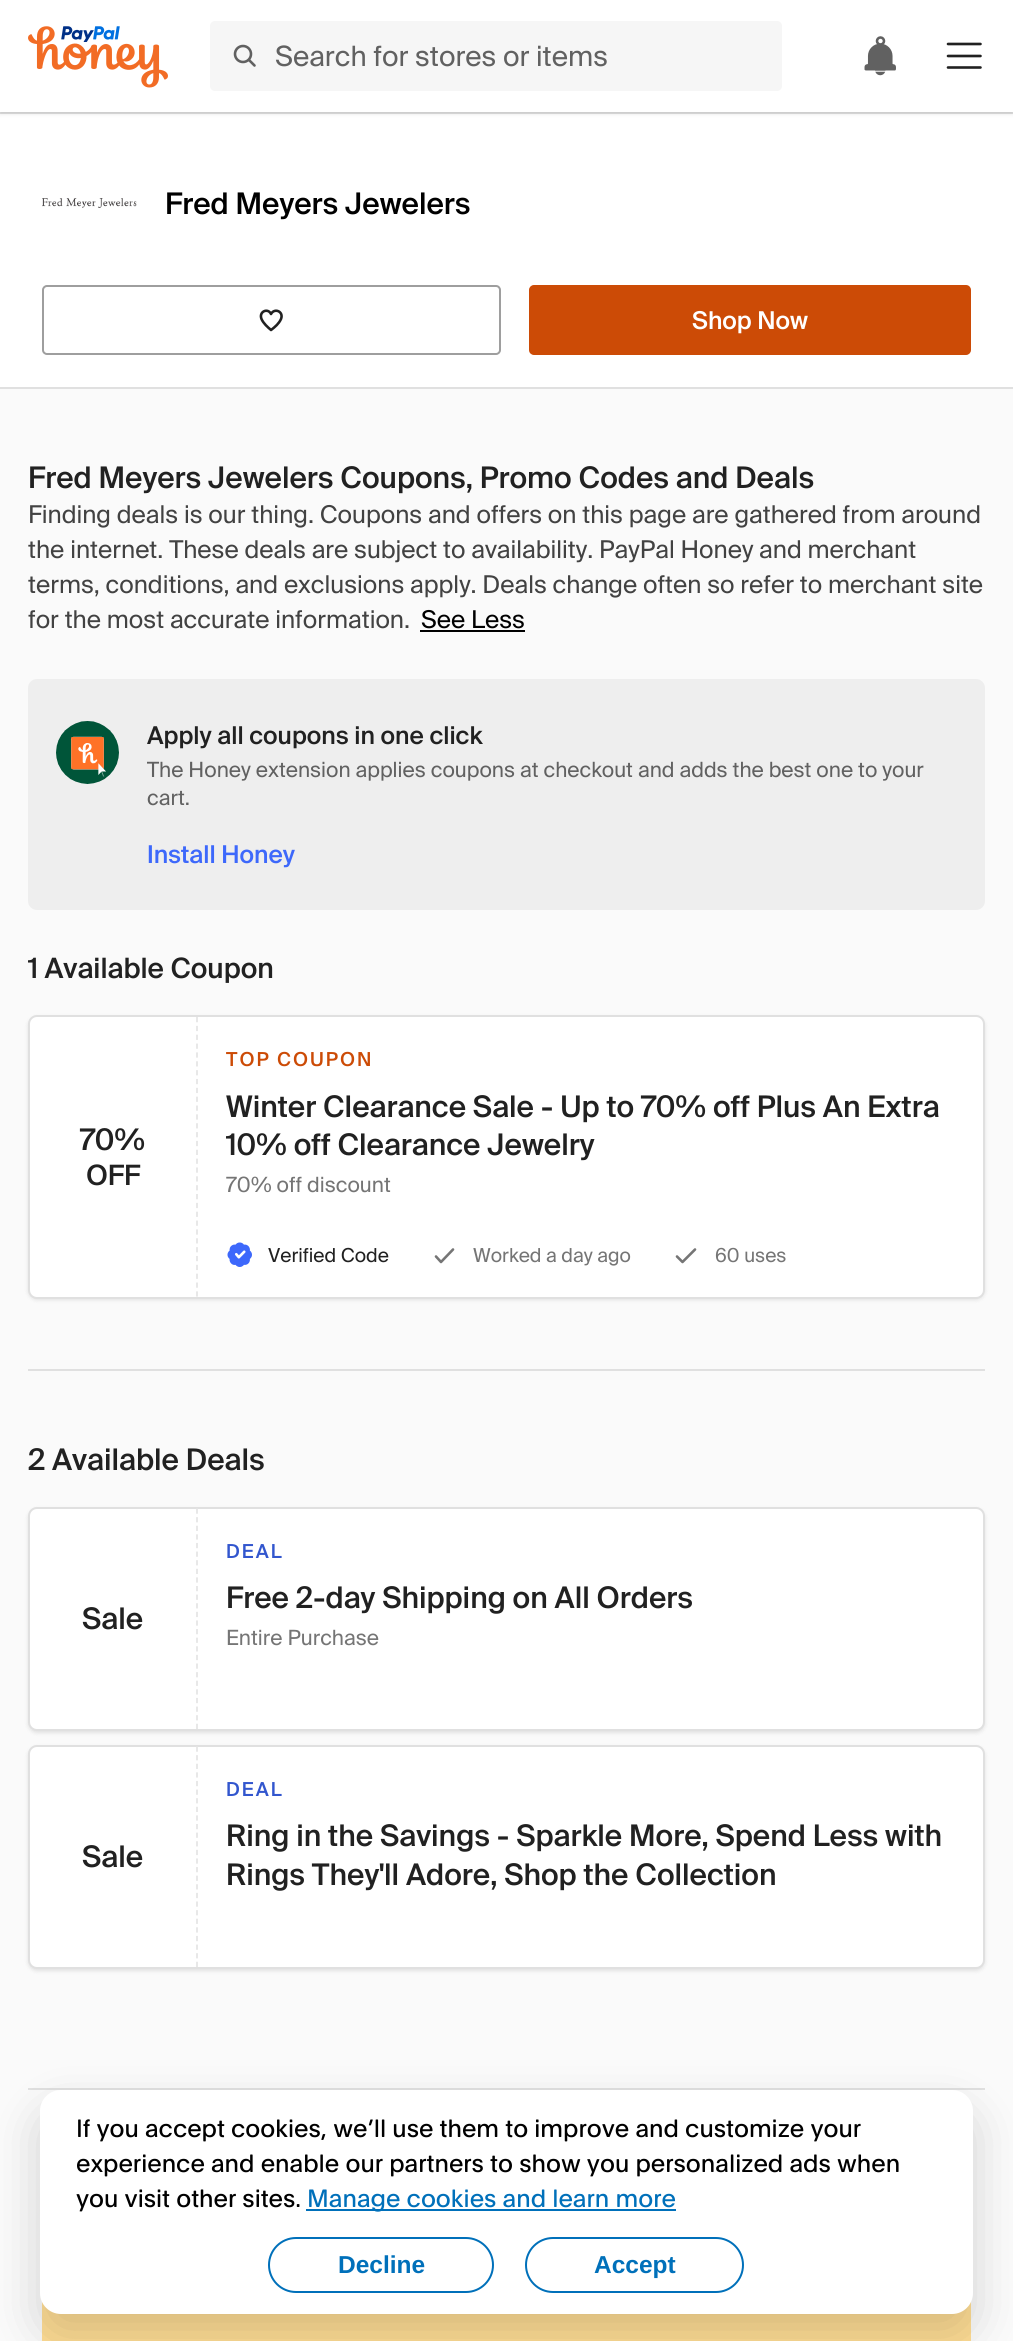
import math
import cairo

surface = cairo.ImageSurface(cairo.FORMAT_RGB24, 1013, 2341)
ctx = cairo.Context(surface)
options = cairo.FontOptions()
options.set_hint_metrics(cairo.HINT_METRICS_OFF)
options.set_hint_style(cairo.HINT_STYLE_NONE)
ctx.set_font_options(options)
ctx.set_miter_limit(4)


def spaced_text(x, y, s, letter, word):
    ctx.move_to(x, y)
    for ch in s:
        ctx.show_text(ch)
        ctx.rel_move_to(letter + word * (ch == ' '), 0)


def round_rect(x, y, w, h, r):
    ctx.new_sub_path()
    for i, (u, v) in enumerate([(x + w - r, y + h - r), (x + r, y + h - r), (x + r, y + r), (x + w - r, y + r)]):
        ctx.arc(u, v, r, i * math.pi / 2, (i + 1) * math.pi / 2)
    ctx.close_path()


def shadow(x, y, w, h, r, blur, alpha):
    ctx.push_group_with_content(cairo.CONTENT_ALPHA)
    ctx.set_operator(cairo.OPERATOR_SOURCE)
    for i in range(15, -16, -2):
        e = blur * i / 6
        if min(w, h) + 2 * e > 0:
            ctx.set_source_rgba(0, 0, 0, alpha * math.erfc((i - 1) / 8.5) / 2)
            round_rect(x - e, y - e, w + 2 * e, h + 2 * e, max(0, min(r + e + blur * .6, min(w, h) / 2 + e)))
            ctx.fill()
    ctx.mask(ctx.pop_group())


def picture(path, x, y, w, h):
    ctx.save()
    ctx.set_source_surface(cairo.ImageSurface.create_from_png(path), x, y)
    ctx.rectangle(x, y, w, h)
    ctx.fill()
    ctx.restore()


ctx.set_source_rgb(0.98, 0.98, 0.98)
ctx.paint()
ctx.set_source_rgb(1, 1, 1)
ctx.rectangle(0, 114, 1013, 273)
ctx.fill()
ctx.set_source_rgb(0.878, 0.878, 0.878)
ctx.rectangle(0, 112, 1013, 2)
ctx.fill()
ctx.set_source_rgb(0, 0, 0)
shadow(0, 2, 1013, 112, 0, 2, 0.1)
ctx.set_source_rgb(1, 1, 1)
ctx.rectangle(0, 0, 1013, 112)
ctx.fill()
picture("img1.png", 28, 26, 140, 62)
ctx.set_source_rgb(0.961, 0.961, 0.961)
round_rect(210, 21, 572, 70, 5)
ctx.fill()
ctx.arc(243, 54, 8, 0, 2 * math.pi)
ctx.set_source_rgb(0.38, 0.38, 0.38)
ctx.set_line_width(2.6)
ctx.stroke()
ctx.new_path()
ctx.move_to(249, 60)
ctx.line_to(254.5, 65.5)
ctx.set_line_cap(cairo.LINE_CAP_ROUND)
ctx.stroke()
ctx.select_font_face("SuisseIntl")
ctx.set_font_size(28)
ctx.move_to(275, 66)
ctx.show_text("Search for stores or items")
picture("img2.png", 864, 36, 32, 40)
ctx.new_path()
ctx.move_to(948, 44)
ctx.line_to(980.5, 44)
ctx.move_to(948, 56)
ctx.line_to(980.5, 56)
ctx.move_to(948, 67.5)
ctx.line_to(980.5, 67.5)
ctx.set_source_rgb(0.129, 0.129, 0.129)
ctx.set_line_join(cairo.LINE_JOIN_ROUND)
ctx.stroke()
ctx.set_source_rgb(0.878, 0.878, 0.878)
ctx.rectangle(0, 387, 1013, 2)
ctx.fill()
picture("img3.png", 42, 198, 95, 10)
ctx.select_font_face("SuisseIntl Medium")
ctx.set_font_size(29.75)
ctx.set_source_rgb(0, 0, 0)
ctx.move_to(165, 214)
ctx.show_text("Fred Meyers Jewelers")
round_rect(43, 286, 457, 68, 4)
ctx.set_source_rgb(0.62, 0.62, 0.62)
ctx.set_line_width(2)
ctx.set_line_cap(cairo.LINE_CAP_BUTT)
ctx.set_line_join(cairo.LINE_JOIN_MITER)
ctx.stroke()
ctx.new_path()
ctx.move_to(271, 314)
ctx.curve_to(274.5, 307.5, 284, 311.5, 281, 319)
ctx.curve_to(279, 323.5, 275, 327, 271, 330)
ctx.curve_to(267.5, 327, 263.5, 323.5, 261.5, 319)
ctx.curve_to(258.5, 311.5, 268, 307.5, 271, 314)
ctx.close_path()
ctx.set_source_rgb(0.129, 0.129, 0.129)
ctx.set_line_width(2.6)
ctx.set_line_join(cairo.LINE_JOIN_ROUND)
ctx.stroke()
ctx.set_source_rgb(0.8, 0.294, 0.024)
round_rect(530, 286, 440, 68, 4)
ctx.fill_preserve()
ctx.set_line_width(2)
ctx.set_line_join(cairo.LINE_JOIN_MITER)
ctx.stroke()
ctx.set_font_size(24.5)
ctx.set_source_rgb(1, 1, 1)
ctx.move_to(692, 329)
ctx.show_text("Shop Now")
ctx.set_font_size(29.75)
ctx.set_source_rgb(0.129, 0.129, 0.129)
ctx.move_to(28, 488)
ctx.show_text("Fred Meyers Jewelers Coupons, Promo Codes and Deals")
ctx.select_font_face("SuisseIntl")
ctx.set_font_size(24.5)
ctx.set_source_rgb(0.259, 0.259, 0.259)
ctx.move_to(28, 523)
ctx.show_text("Finding deals is our thing. Coupons and offers on this page are gathered from around")
ctx.move_to(28, 558)
ctx.show_text("the internet. These deals are subject to availability. PayPal Honey and merchant")
ctx.move_to(28, 593)
ctx.show_text("terms, conditions, and exclusions apply. Deals change often so refer to merchant site")
ctx.move_to(28, 628)
ctx.show_text("for the most accurate information.")
ctx.set_source_rgb(0, 0, 0)
ctx.move_to(421, 628)
ctx.show_text("See Less")
ctx.rectangle(420, 630, 105, 2)
ctx.fill()
ctx.set_source_rgb(0.933, 0.933, 0.933)
round_rect(28, 679, 957, 231, 9)
ctx.fill()
picture("img4.png", 56, 721, 63, 63)
ctx.select_font_face("SuisseIntl Medium")
ctx.set_source_rgb(0.129, 0.129, 0.129)
ctx.move_to(147, 744)
ctx.show_text("Apply all coupons in one click")
ctx.select_font_face("SuisseIntl")
ctx.set_font_size(21)
ctx.set_source_rgb(0.38, 0.38, 0.38)
ctx.move_to(147, 777)
ctx.show_text("The Honey extension applies coupons at checkout and adds the best one to your")
ctx.move_to(147, 805)
ctx.show_text("cart.")
ctx.select_font_face("SuisseIntl Medium")
ctx.set_font_size(24.5)
ctx.set_source_rgb(0.239, 0.408, 0.984)
ctx.move_to(147, 863)
ctx.show_text("Install Honey")
ctx.set_source_rgb(0.878, 0.878, 0.878)
ctx.rectangle(28, 1369, 957, 2)
ctx.fill()
ctx.set_font_size(28)
ctx.set_source_rgb(0.129, 0.129, 0.129)
ctx.move_to(28, 978)
ctx.show_text("1 Available Coupon")
ctx.set_source_rgb(0, 0, 0)
shadow(28, 1017, 957, 283, 9, 2, 0.1)
ctx.set_source_rgb(1, 1, 1)
round_rect(29, 1016, 955, 282, 8)
ctx.fill_preserve()
ctx.set_source_rgb(0.878, 0.878, 0.878)
ctx.stroke()
ctx.new_path()
ctx.move_to(197, 1017)
ctx.line_to(197, 1297)
ctx.set_source_rgb(0.902, 0.902, 0.902)
ctx.set_line_width(1.8)
ctx.set_dash([5.25, 3.6])
ctx.stroke()
ctx.set_font_size(29.75)
ctx.set_source_rgb(0.129, 0.129, 0.129)
ctx.move_to(80, 1150)
ctx.show_text("70%")
ctx.set_font_size(28)
ctx.move_to(86, 1185)
ctx.show_text("OFF")
ctx.set_font_size(19.25)
ctx.set_source_rgb(0.8, 0.294, 0.024)
spaced_text(226, 1066, "TOP COUPON", 2, 0)
ctx.set_font_size(29.75)
ctx.set_source_rgb(0.129, 0.129, 0.129)
ctx.move_to(226, 1117)
ctx.show_text("Winter Clearance Sale - Up to 70% off Plus An Extra")
ctx.move_to(226, 1155)
ctx.show_text("10% off Clearance Jewelry")
ctx.select_font_face("SuisseIntl")
ctx.set_font_size(21)
ctx.set_source_rgb(0.459, 0.459, 0.459)
ctx.move_to(226, 1192)
ctx.show_text("70% off discount")
picture("img5.png", 227, 1242, 25, 25)
ctx.set_font_size(19.25)
ctx.set_source_rgb(0.129, 0.129, 0.129)
ctx.move_to(268, 1262)
ctx.show_text("Verified Code")
ctx.new_path()
ctx.move_to(436, 1256.5)
ctx.line_to(441, 1262)
ctx.line_to(453, 1249.5)
ctx.set_source_rgb(0.459, 0.459, 0.459)
ctx.set_line_width(2.6)
ctx.set_line_cap(cairo.LINE_CAP_ROUND)
ctx.set_line_join(cairo.LINE_JOIN_ROUND)
ctx.set_dash([])
ctx.stroke()
ctx.move_to(473, 1262)
ctx.show_text("Worked a day ago")
ctx.new_path()
ctx.move_to(677, 1256.5)
ctx.line_to(682.5, 1262)
ctx.line_to(695, 1249.5)
ctx.stroke()
ctx.move_to(715, 1262)
ctx.show_text("60 uses")
ctx.set_source_rgb(0.878, 0.878, 0.878)
ctx.rectangle(28, 2088, 957, 2)
ctx.fill()
ctx.select_font_face("SuisseIntl Medium")
ctx.set_font_size(29.75)
ctx.set_source_rgb(0.129, 0.129, 0.129)
ctx.move_to(28, 1470)
ctx.show_text("2 Available Deals")
ctx.set_source_rgb(0, 0, 0)
shadow(28, 1509, 957, 224, 9, 2, 0.1)
ctx.set_source_rgb(1, 1, 1)
round_rect(29, 1508, 955, 222, 8)
ctx.fill_preserve()
ctx.set_source_rgb(0.878, 0.878, 0.878)
ctx.set_line_width(2)
ctx.set_line_cap(cairo.LINE_CAP_BUTT)
ctx.set_line_join(cairo.LINE_JOIN_MITER)
ctx.stroke()
ctx.new_path()
ctx.move_to(197, 1508.5)
ctx.line_to(197, 1729)
ctx.set_source_rgb(0.902, 0.902, 0.902)
ctx.set_line_width(1.8)
ctx.set_dash([5.25, 3.36])
ctx.stroke()
ctx.set_source_rgb(0.129, 0.129, 0.129)
ctx.move_to(82, 1629)
ctx.show_text("Sale")
ctx.set_font_size(19.25)
ctx.set_source_rgb(0.196, 0.337, 0.808)
spaced_text(226, 1558, "DEAL", 2, 0)
ctx.set_font_size(29.75)
ctx.set_source_rgb(0.129, 0.129, 0.129)
ctx.move_to(226, 1608)
ctx.show_text("Free 2-day Shipping on All Orders")
ctx.select_font_face("SuisseIntl")
ctx.set_font_size(21)
ctx.set_source_rgb(0.459, 0.459, 0.459)
ctx.move_to(226, 1645)
ctx.show_text("Entire Purchase")
ctx.set_source_rgb(0, 0, 0)
shadow(28, 1747, 957, 224, 9, 2, 0.1)
ctx.set_source_rgb(1, 1, 1)
round_rect(29, 1746, 955, 222, 8)
ctx.fill_preserve()
ctx.set_source_rgb(0.878, 0.878, 0.878)
ctx.set_line_width(2)
ctx.set_dash([])
ctx.stroke()
ctx.new_path()
ctx.move_to(197, 1746.5)
ctx.line_to(197, 1967)
ctx.set_source_rgb(0.902, 0.902, 0.902)
ctx.set_line_width(1.8)
ctx.set_dash([5.25, 3.36])
ctx.stroke()
ctx.select_font_face("SuisseIntl Medium")
ctx.set_font_size(29.75)
ctx.set_source_rgb(0.129, 0.129, 0.129)
ctx.move_to(82, 1867)
ctx.show_text("Sale")
ctx.set_font_size(19.25)
ctx.set_source_rgb(0.196, 0.337, 0.808)
spaced_text(226, 1796, "DEAL", 2, 0)
ctx.set_font_size(29.75)
ctx.set_source_rgb(0.129, 0.129, 0.129)
ctx.move_to(226, 1846)
ctx.show_text("Ring in the Savings - Sparkle More, Spend Less with")
ctx.move_to(226, 1885)
ctx.show_text("Rings They'll Adore, Shop the Collection")
ctx.set_source_rgb(1, 0.867, 0.584)
ctx.rectangle(42, 2302, 929, 39)
ctx.fill()
ctx.set_source_rgb(0, 0, 0)
shadow(40, 2111, 933, 224, 21, 24.5, 0.16)
ctx.set_source_rgb(1, 1, 1)
round_rect(40, 2090, 933, 224, 21)
ctx.fill()
ctx.select_font_face("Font")
ctx.set_font_size(24.5)
ctx.set_source_rgb(0, 0, 0)
ctx.move_to(76, 2137)
ctx.show_text("If you accept cookies, we’ll use them to improve and customize your")
ctx.move_to(76, 2172)
ctx.show_text("experience and enable our partners to show you personalized ads when")
ctx.move_to(76, 2207)
ctx.show_text("you visit other sites.")
ctx.set_source_rgb(0, 0.439, 0.729)
ctx.rectangle(306, 2209, 370, 2)
ctx.fill()
ctx.move_to(307, 2207)
ctx.show_text("Manage cookies and learn more")
round_rect(269, 2238, 224, 54, 27)
ctx.set_line_width(2)
ctx.set_dash([])
ctx.stroke()
ctx.select_font_face("Liberation Sans", cairo.FONT_SLANT_NORMAL, cairo.FONT_WEIGHT_BOLD)
ctx.move_to(338, 2273)
ctx.show_text("Decline")
round_rect(526, 2238, 217, 54, 27)
ctx.stroke()
ctx.move_to(594, 2273)
ctx.show_text("Accept")
surface.write_to_png("page.png")
